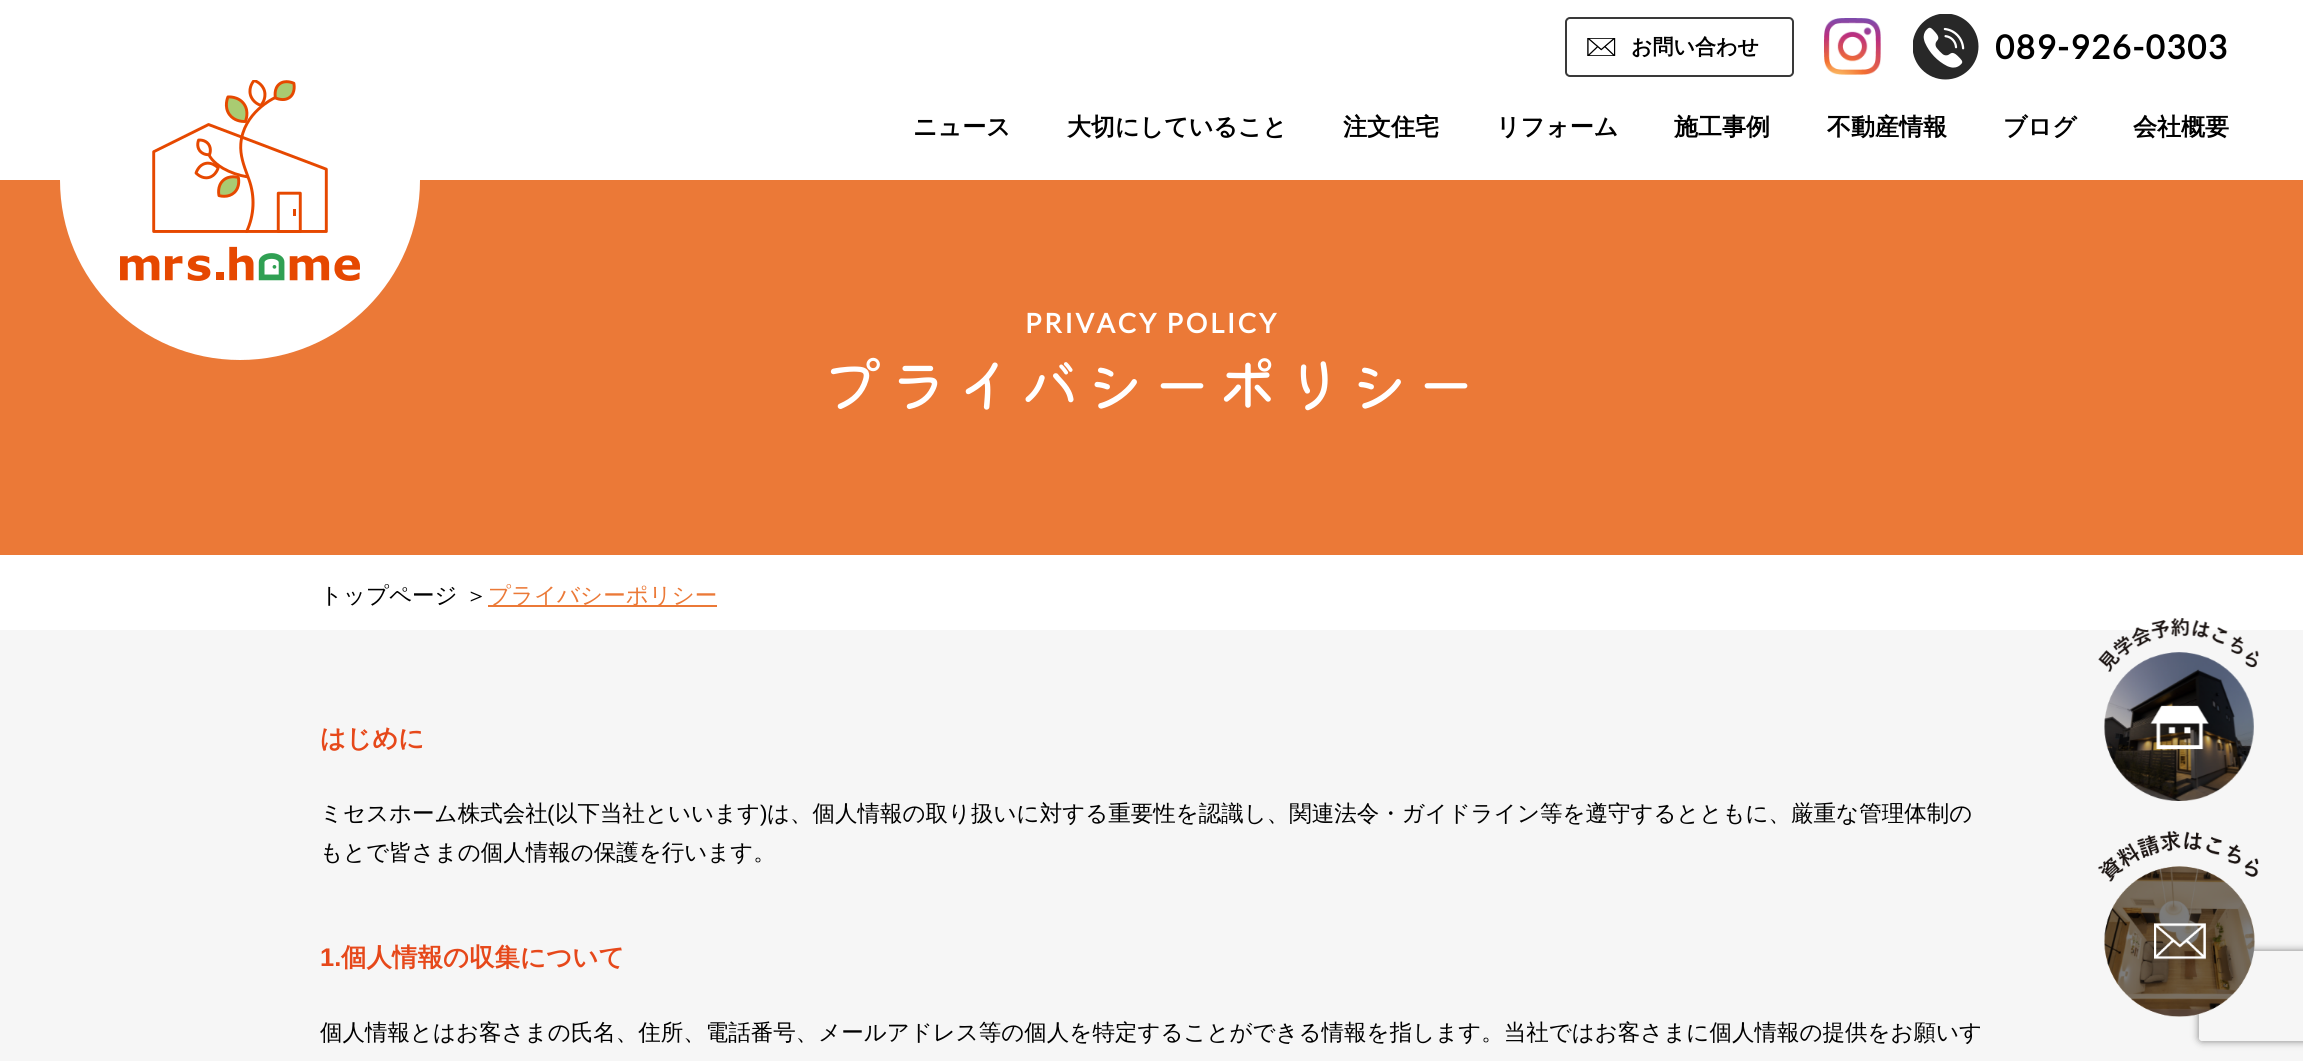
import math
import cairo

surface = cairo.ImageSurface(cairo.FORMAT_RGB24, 2303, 1061)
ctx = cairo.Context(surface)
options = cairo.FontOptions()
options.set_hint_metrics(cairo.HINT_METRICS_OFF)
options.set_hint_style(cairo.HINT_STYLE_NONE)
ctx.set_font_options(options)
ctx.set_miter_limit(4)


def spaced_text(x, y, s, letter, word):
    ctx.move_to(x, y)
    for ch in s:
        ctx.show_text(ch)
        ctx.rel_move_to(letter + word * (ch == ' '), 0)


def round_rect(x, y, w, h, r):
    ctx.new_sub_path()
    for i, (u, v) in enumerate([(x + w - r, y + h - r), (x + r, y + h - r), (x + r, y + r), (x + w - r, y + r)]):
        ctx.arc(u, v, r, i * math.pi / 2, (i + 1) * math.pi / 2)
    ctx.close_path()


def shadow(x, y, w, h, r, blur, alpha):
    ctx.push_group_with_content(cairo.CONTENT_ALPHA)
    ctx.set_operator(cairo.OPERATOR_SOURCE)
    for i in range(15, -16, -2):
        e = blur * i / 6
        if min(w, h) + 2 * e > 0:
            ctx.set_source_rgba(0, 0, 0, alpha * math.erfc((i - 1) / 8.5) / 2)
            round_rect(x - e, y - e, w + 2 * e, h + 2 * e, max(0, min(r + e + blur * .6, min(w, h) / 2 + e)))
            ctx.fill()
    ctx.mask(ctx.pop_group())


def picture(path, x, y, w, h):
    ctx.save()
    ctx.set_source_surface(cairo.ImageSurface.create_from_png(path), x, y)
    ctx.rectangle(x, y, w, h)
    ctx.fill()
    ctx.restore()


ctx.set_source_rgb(1, 1, 1)
ctx.paint()
ctx.set_source_rgb(0.918, 0.475, 0.216)
ctx.rectangle(0, 180, 2303, 375)
ctx.fill()
ctx.set_source_rgb(1, 1, 1)
ctx.arc(240, 180, 180, 0, 2 * math.pi)
ctx.fill()
picture("img1.png", 120, 80, 240, 201)
picture("img2.png", 1587, 38, 29, 18)
round_rect(1566, 18, 227, 58, 4)
ctx.set_source_rgb(0.224, 0.224, 0.224)
ctx.stroke()
ctx.select_font_face("WenQuanYi Zen Hei", cairo.FONT_SLANT_NORMAL, cairo.FONT_WEIGHT_BOLD)
ctx.set_font_size(21)
ctx.set_source_rgb(0, 0, 0)
ctx.move_to(1631, 54)
ctx.show_text("お問い合わせ")
picture("img3.png", 1824, 18, 57, 57)
picture("img4.png", 1913, 14, 66, 66)
ctx.select_font_face("Lato", cairo.FONT_SLANT_NORMAL, cairo.FONT_WEIGHT_BOLD)
ctx.set_font_size(33)
spaced_text(1995, 59, "089-926-0303", 1.6, 0)
ctx.select_font_face("WenQuanYi Zen Hei", cairo.FONT_SLANT_NORMAL, cairo.FONT_WEIGHT_BOLD)
ctx.set_font_size(24)
ctx.move_to(913, 135)
ctx.show_text("ニュース")
ctx.move_to(1067, 135)
ctx.show_text("大切にしていること")
ctx.move_to(1343, 135)
ctx.show_text("注文住宅")
ctx.move_to(1496, 135)
ctx.show_text("リフォーム")
ctx.move_to(1674, 135)
ctx.show_text("施工事例")
ctx.move_to(1827, 135)
ctx.show_text("不動産情報")
ctx.move_to(2003, 135)
ctx.show_text("ブログ")
ctx.move_to(2133, 135)
ctx.show_text("会社概要")
ctx.select_font_face("Lato", cairo.FONT_SLANT_NORMAL, cairo.FONT_WEIGHT_BOLD)
ctx.set_font_size(27)
ctx.set_source_rgb(1, 1, 1)
spaced_text(1025, 333, "PRIVACY POLICY", 2.75, 0)
ctx.select_font_face("Kiwi Maru Medium")
ctx.set_font_size(60)
spaced_text(822, 408, "プライバシーポリシー", 6, 0)
ctx.select_font_face("WenQuanYi Zen Hei Medium")
ctx.set_font_size(22.5)
ctx.set_source_rgb(0, 0, 0)
ctx.move_to(320, 603)
ctx.show_text("トップページ")
ctx.move_to(465, 603)
ctx.show_text("＞")
ctx.set_source_rgb(0.918, 0.475, 0.216)
ctx.rectangle(488, 605, 229, 2)
ctx.fill()
ctx.move_to(488, 603)
ctx.show_text("プライバシーポリシー")
ctx.set_source_rgb(0.961, 0.961, 0.961)
ctx.rectangle(0, 630, 2303, 431)
ctx.fill()
ctx.select_font_face("WenQuanYi Zen Hei", cairo.FONT_SLANT_NORMAL, cairo.FONT_WEIGHT_BOLD)
ctx.set_font_size(25.5)
ctx.set_source_rgb(0.902, 0.282, 0.102)
ctx.move_to(320, 747)
ctx.show_text("はじめに")
ctx.select_font_face("WenQuanYi Zen Hei Medium")
ctx.set_font_size(22.5)
ctx.set_source_rgb(0, 0, 0)
ctx.move_to(320, 821)
ctx.show_text("ミセスホーム株式会社")
ctx.select_font_face("Liberation Sans")
ctx.move_to(547, 821)
ctx.show_text("(")
ctx.select_font_face("WenQuanYi Zen Hei Medium")
ctx.move_to(555, 821)
ctx.show_text("以下当社といいます")
ctx.select_font_face("Liberation Sans")
ctx.move_to(760, 821)
ctx.show_text(")")
ctx.select_font_face("WenQuanYi Zen Hei Medium")
ctx.move_to(767, 821)
ctx.show_text("は、個人情報の取り扱いに対する重要性を認識し、関連法令・ガイドライン等を遵守するとともに、厳重な管理体制の")
ctx.move_to(320, 860)
ctx.show_text("もとで皆さまの個人情報の保護を行います。")
ctx.select_font_face("Liberation Sans", cairo.FONT_SLANT_NORMAL, cairo.FONT_WEIGHT_BOLD)
ctx.set_font_size(25.5)
ctx.set_source_rgb(0.902, 0.282, 0.102)
ctx.move_to(320, 966)
ctx.show_text("1.")
ctx.select_font_face("WenQuanYi Zen Hei", cairo.FONT_SLANT_NORMAL, cairo.FONT_WEIGHT_BOLD)
ctx.move_to(341, 966)
ctx.show_text("個人情報の収集について")
ctx.select_font_face("WenQuanYi Zen Hei Medium")
ctx.set_font_size(22.5)
ctx.set_source_rgb(0, 0, 0)
ctx.move_to(320, 1040)
ctx.show_text("個人情報とはお客さまの氏名、住所、電話番号、メールアドレス等の個人を特定することができる情報を指します。当社ではお客さまに個人情報の提供をお願いす")
picture("img5.png", 2098, 618, 161, 183)
ctx.save()
ctx.set_fill_rule(cairo.FILL_RULE_EVEN_ODD)
ctx.new_path()
ctx.move_to(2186, 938)
ctx.line_to(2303, 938)
ctx.line_to(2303, 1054)
ctx.line_to(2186, 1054)
ctx.close_path()
ctx.move_to(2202, 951)
ctx.line_to(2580, 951)
ctx.curve_to(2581.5, 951, 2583, 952.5, 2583, 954)
ctx.line_to(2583, 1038)
ctx.curve_to(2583, 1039.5, 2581.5, 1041, 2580, 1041)
ctx.line_to(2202, 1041)
ctx.curve_to(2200.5, 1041, 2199, 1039.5, 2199, 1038)
ctx.line_to(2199, 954)
ctx.curve_to(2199, 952.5, 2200.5, 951, 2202, 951)
ctx.close_path()
ctx.clip()
ctx.set_source_rgb(0.502, 0.502, 0.502)
shadow(2199, 951, 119, 90, 3, 4, 1)
ctx.restore()
picture("img6.png", 2098, 831, 161, 186)
surface.write_to_png("page.png")
